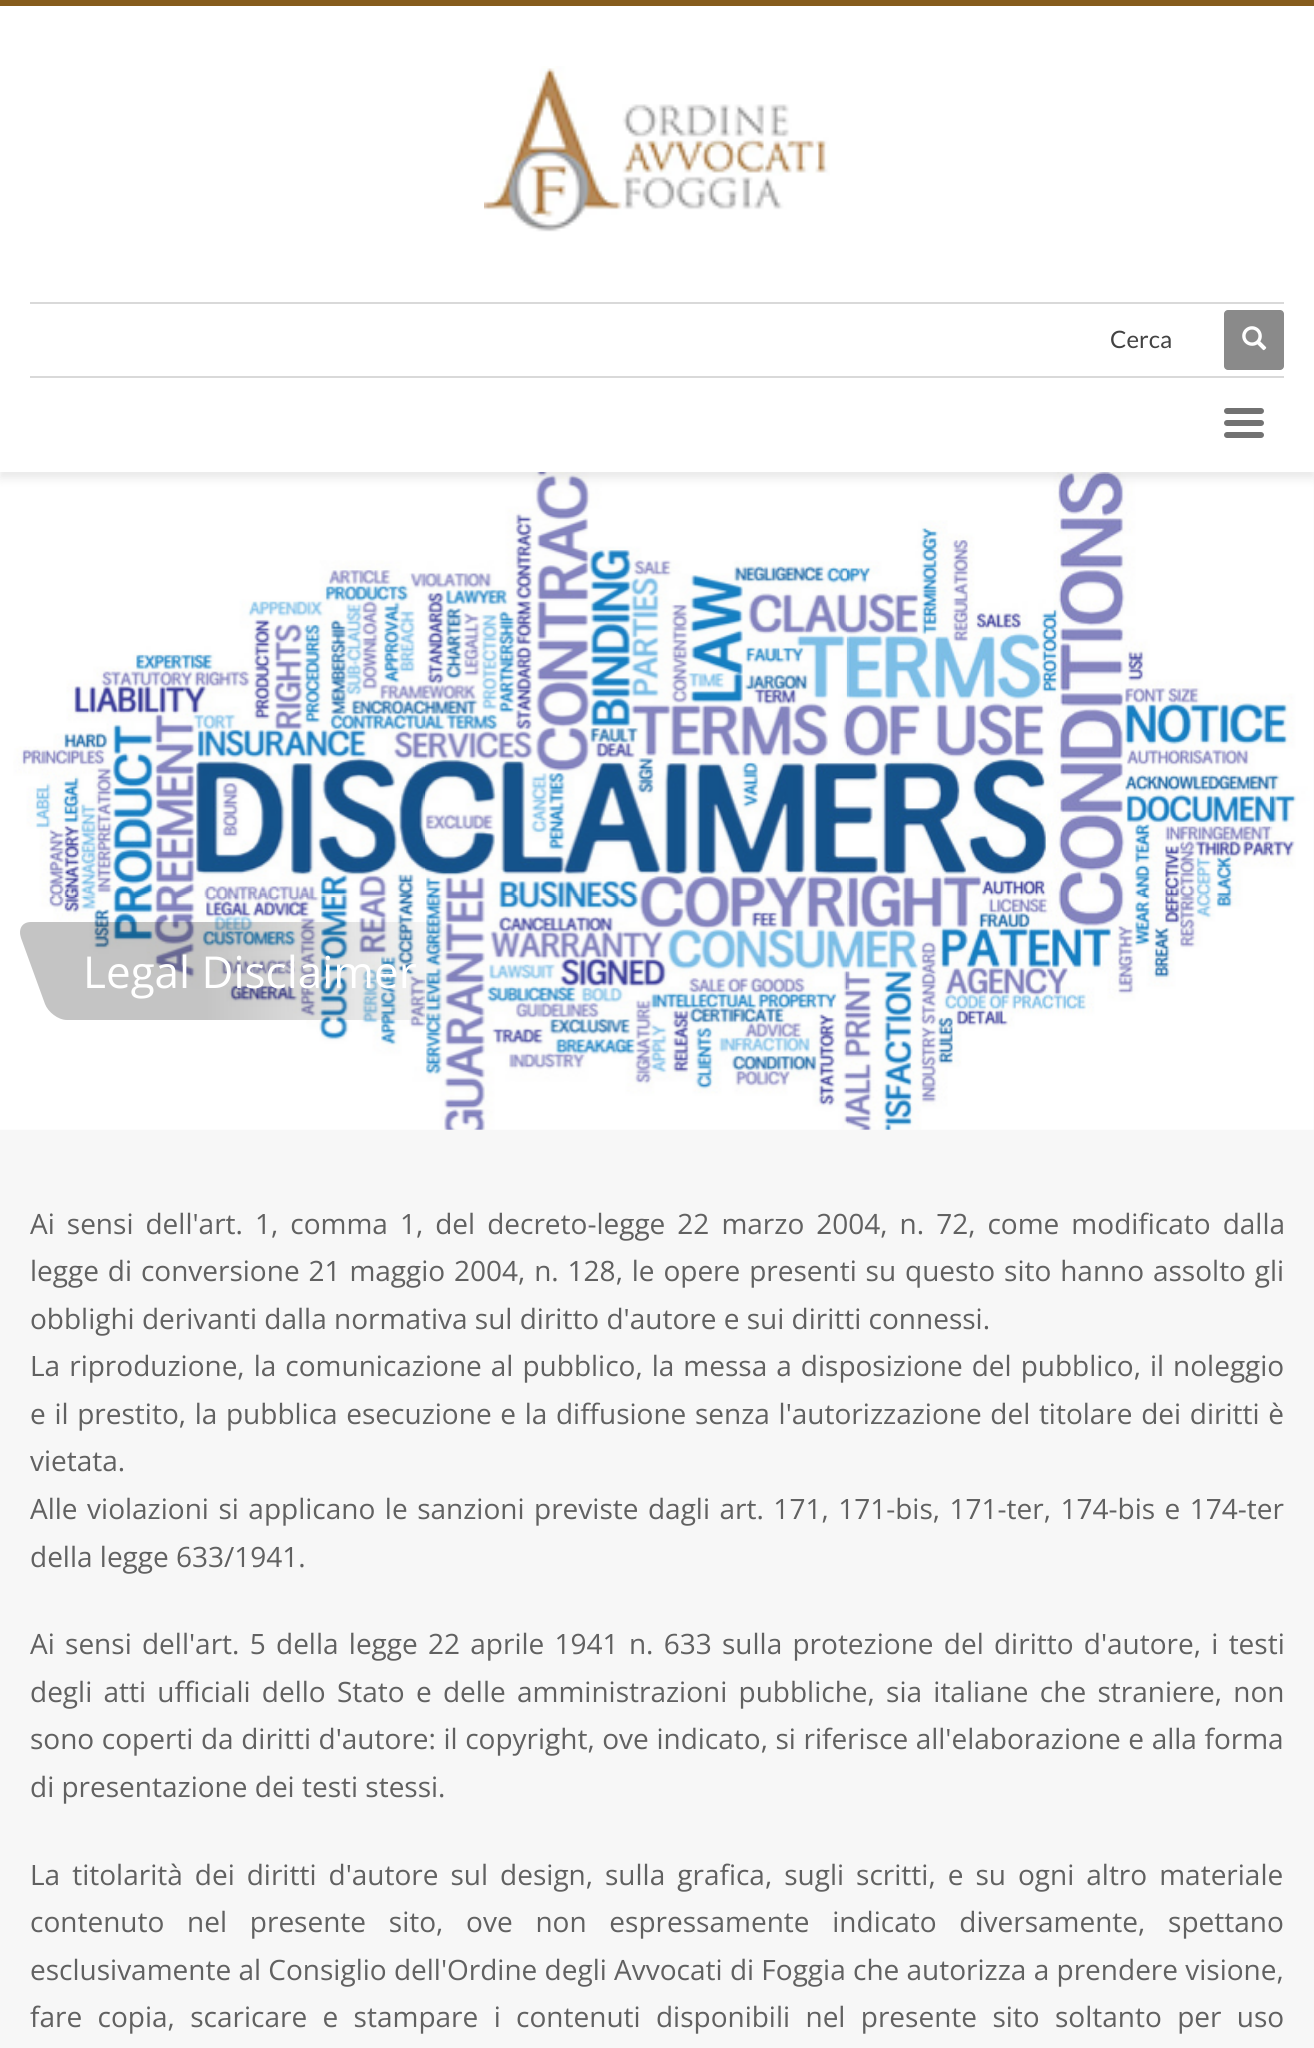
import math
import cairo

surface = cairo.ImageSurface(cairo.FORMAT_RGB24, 1314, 2048)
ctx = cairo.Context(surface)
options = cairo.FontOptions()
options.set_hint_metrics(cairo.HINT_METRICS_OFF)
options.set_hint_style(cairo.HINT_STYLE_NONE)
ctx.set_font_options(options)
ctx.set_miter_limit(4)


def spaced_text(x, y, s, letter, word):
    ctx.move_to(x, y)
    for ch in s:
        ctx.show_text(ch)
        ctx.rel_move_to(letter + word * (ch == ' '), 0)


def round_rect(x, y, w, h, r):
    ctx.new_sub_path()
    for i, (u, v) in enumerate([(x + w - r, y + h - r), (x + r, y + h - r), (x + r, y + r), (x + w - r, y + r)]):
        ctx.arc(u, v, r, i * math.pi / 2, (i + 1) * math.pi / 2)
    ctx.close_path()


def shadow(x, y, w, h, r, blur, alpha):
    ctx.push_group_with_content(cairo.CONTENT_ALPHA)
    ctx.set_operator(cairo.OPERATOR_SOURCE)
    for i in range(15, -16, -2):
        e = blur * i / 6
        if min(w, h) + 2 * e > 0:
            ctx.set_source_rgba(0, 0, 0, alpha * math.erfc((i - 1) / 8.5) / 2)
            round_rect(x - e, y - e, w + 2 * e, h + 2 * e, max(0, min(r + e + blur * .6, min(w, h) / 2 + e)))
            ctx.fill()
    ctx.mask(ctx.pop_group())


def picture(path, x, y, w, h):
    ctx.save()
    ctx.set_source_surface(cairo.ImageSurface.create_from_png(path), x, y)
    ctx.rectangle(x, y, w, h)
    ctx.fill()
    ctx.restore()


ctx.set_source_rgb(0.965, 0.965, 0.965)
ctx.paint()
picture("img3.png", 0, 472, 1314, 658)
ctx.set_source_rgb(0.078, 0.078, 0.078)
shadow(0, 6, 1314, 472, 0, 5, 0.1)
ctx.set_source_rgb(1, 1, 1)
ctx.rectangle(0, 6, 1314, 466)
ctx.fill()
ctx.set_source_rgb(0.525, 0.361, 0.114)
ctx.rectangle(0, 0, 1314, 6)
ctx.fill()
picture("img1.png", 484, 66, 346, 166)
ctx.set_source_rgb(0.851, 0.851, 0.851)
ctx.rectangle(30, 302, 1254, 2)
ctx.fill()
ctx.select_font_face("Lato")
ctx.set_font_size(24)
ctx.set_source_rgb(0.263, 0.263, 0.263)
ctx.move_to(1110, 348)
ctx.show_text("Cerca")
ctx.set_source_rgb(0.541, 0.541, 0.541)
round_rect(1224, 310, 60, 60, 4)
ctx.fill()
picture("img2.png", 1242, 326, 25, 25)
ctx.set_source_rgb(0.851, 0.851, 0.851)
ctx.rectangle(30, 376, 1254, 2)
ctx.fill()
ctx.set_source_rgb(0.447, 0.447, 0.447)
round_rect(1224, 408, 40, 6, 3)
ctx.fill()
round_rect(1224, 420, 40, 6, 3)
ctx.fill()
round_rect(1224, 432, 40, 6, 3)
ctx.fill()
ctx.select_font_face("Open Sans")
ctx.set_font_size(44)
ctx.set_source_rgb(1, 1, 1)
ctx.move_to(83, 988)
ctx.show_text("Legal Disclaimer")
ctx.set_font_size(28)
ctx.set_source_rgb(0.38, 0.38, 0.38)
spaced_text(30, 1234, "Ai sensi dell'art. 1, comma 1, del decreto-legge 22 marzo 2004, n. 72, come modificato dalla", 0, 4.75)
spaced_text(30, 1281, "legge di conversione 21 maggio 2004, n. 128, le opere presenti su questo sito hanno assolto gli", 0, 1.6)
ctx.move_to(30, 1329)
ctx.show_text("obblighi derivanti dalla normativa sul diritto d'autore e sui diritti connessi.")
spaced_text(30, 1376, "La riproduzione, la comunicazione al pubblico, la messa a disposizione del pubblico, il noleggio", 0, 1.75)
spaced_text(30, 1424, "e il prestito, la pubblica esecuzione e la diffusione senza l'autorizzazione del titolare dei diritti è", 0, 1.4)
ctx.move_to(30, 1471)
ctx.show_text("vietata.")
spaced_text(30, 1519, "Alle violazioni si applicano le sanzioni previste dagli art. 171, 171-bis, 171-ter, 174-bis e 174-ter", 0, 2.25)
ctx.move_to(30, 1567)
ctx.show_text("della legge 633/1941.")
spaced_text(30, 1654, "Ai sensi dell'art. 5 della legge 22 aprile 1941 n. 633 sulla protezione del diritto d'autore, i testi", 0, 3)
spaced_text(30, 1702, "degli atti ufficiali dello Stato e delle amministrazioni pubbliche, sia italiane che straniere, non", 0, 4)
spaced_text(30, 1749, "sono coperti da diritti d'autore: il copyright, ove indicato, si riferisce all'elaborazione e alla forma", 0, 0.3)
ctx.move_to(30, 1797)
ctx.show_text("di presentazione dei testi stessi.")
spaced_text(30, 1885, "La titolarità dei diritti d'autore sul design, sulla grafica, sugli scritti, e su ogni altro materiale", 0, 4.75)
spaced_text(30, 1932, "contenuto nel presente sito, ove non espressamente indicato diversamente, spettano", 0, 15.5)
ctx.move_to(30, 1980)
ctx.show_text("esclusivamente al Consiglio dell'Ordine degli Avvocati di Foggia che autorizza a prendere visione,")
spaced_text(30, 2027, "fare copia, scaricare e stampare i contenuti disponibili nel presente sito soltanto per uso", 0, 8.1)
surface.write_to_png("page.png")
